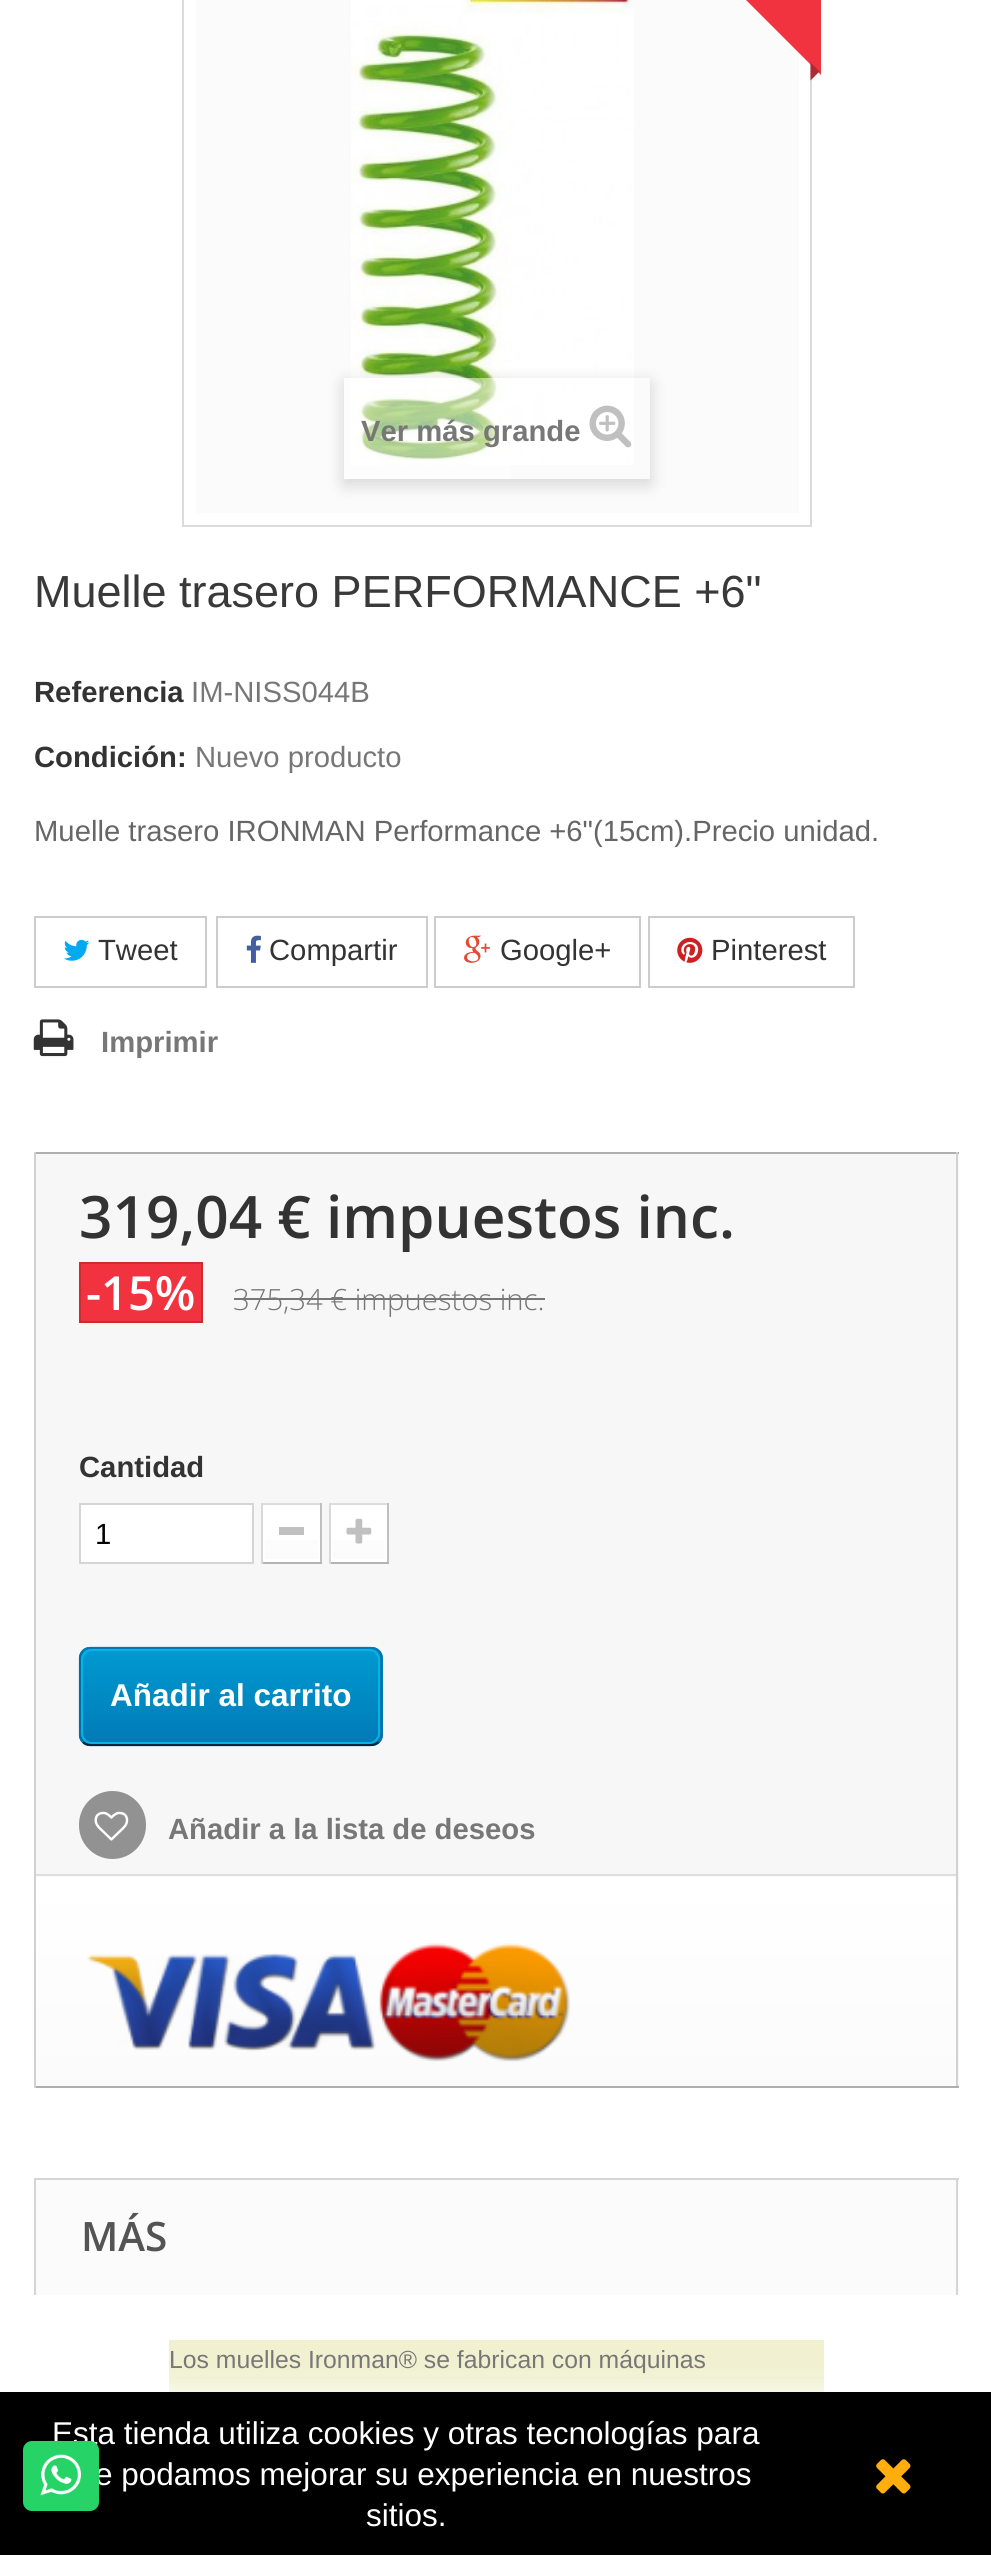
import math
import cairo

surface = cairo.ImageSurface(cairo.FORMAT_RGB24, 991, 2555)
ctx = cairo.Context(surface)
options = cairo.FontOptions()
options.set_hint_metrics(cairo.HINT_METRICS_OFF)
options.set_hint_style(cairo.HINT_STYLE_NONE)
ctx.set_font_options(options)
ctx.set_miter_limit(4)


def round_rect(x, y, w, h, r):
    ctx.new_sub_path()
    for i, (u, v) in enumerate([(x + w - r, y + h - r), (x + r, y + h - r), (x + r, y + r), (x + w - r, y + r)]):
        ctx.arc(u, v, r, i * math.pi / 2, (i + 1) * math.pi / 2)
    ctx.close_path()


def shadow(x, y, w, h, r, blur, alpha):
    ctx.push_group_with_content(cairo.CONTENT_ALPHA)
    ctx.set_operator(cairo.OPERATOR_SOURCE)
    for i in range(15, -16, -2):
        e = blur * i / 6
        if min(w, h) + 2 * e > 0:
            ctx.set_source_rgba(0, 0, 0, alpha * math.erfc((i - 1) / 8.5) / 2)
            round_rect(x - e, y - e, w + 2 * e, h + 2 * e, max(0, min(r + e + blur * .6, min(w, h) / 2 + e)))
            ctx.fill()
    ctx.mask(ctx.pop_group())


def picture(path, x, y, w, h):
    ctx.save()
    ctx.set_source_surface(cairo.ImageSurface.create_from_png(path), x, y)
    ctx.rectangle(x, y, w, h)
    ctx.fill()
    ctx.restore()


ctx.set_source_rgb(1, 1, 1)
ctx.paint()
ctx.rectangle(183, -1, 628, 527)
ctx.set_source_rgb(0.859, 0.859, 0.859)
ctx.stroke()
ctx.set_source_rgb(0.984, 0.984, 0.984)
ctx.rectangle(196, 0, 603, 513)
ctx.fill()
ctx.save()
ctx.rectangle(630, 0, 191, 81)
ctx.clip()
ctx.set_source_rgb(0.945, 0.2, 0.251)
ctx.new_path()
ctx.move_to(667, -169)
ctx.line_to(874, 38)
ctx.line_to(829, 83)
ctx.line_to(622, -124)
ctx.close_path()
ctx.fill()
ctx.restore()
ctx.set_source_rgb(0.678, 0.169, 0.204)
ctx.new_path()
ctx.move_to(810.5, 80.5)
ctx.line_to(810.5, 62.5)
ctx.line_to(819.5, 71.5)
ctx.close_path()
ctx.fill()
picture("img1.png", 351, 0, 283, 465)
ctx.save()
ctx.set_fill_rule(cairo.FILL_RULE_EVEN_ODD)
ctx.new_path()
ctx.move_to(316, 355)
ctx.line_to(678, 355)
ctx.line_to(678, 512)
ctx.line_to(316, 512)
ctx.close_path()
ctx.move_to(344, 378)
ctx.line_to(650, 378)
ctx.line_to(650, 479)
ctx.line_to(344, 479)
ctx.close_path()
ctx.clip()
ctx.set_source_rgb(0, 0, 0)
shadow(344, 383, 306, 101, 0, 9, 0.16)
ctx.restore()
ctx.set_source_rgba(1, 1, 1, 0.5)
ctx.rectangle(344, 378, 167, 101)
ctx.fill()
ctx.select_font_face("Liberation Sans", cairo.FONT_SLANT_NORMAL, cairo.FONT_WEIGHT_BOLD)
ctx.set_font_size(29.25)
ctx.set_source_rgb(0.467, 0.467, 0.467)
ctx.move_to(361, 441)
ctx.show_text("Ver más grande")
picture("img2.png", 589, 405, 43, 43)
ctx.select_font_face("Liberation Sans")
ctx.set_font_size(45)
ctx.set_source_rgb(0.227, 0.224, 0.224)
ctx.move_to(34, 607)
ctx.show_text("Muelle trasero PERFORMANCE +6\"")
ctx.select_font_face("Liberation Sans", cairo.FONT_SLANT_NORMAL, cairo.FONT_WEIGHT_BOLD)
ctx.set_font_size(29.25)
ctx.set_source_rgb(0.2, 0.2, 0.2)
ctx.move_to(34, 702)
ctx.show_text("Referencia")
ctx.select_font_face("Liberation Sans")
ctx.set_source_rgb(0.467, 0.467, 0.467)
ctx.move_to(191, 702)
ctx.show_text("IM-NISS044B")
ctx.select_font_face("Liberation Sans", cairo.FONT_SLANT_NORMAL, cairo.FONT_WEIGHT_BOLD)
ctx.set_source_rgb(0.2, 0.2, 0.2)
ctx.move_to(34, 767)
ctx.show_text("Condición:")
ctx.select_font_face("Liberation Sans")
ctx.set_source_rgb(0.467, 0.467, 0.467)
ctx.move_to(195, 767)
ctx.show_text("Nuevo producto")
ctx.set_source_rgb(0.4, 0.4, 0.4)
ctx.move_to(34, 841)
ctx.show_text("Muelle trasero IRONMAN Performance +6\"(15cm).Precio unidad.")
ctx.rectangle(35, 917, 171, 70)
ctx.set_source_rgb(0.8, 0.8, 0.8)
ctx.stroke()
picture("img3.png", 64, 939, 26, 22)
ctx.set_source_rgb(0.2, 0.2, 0.2)
ctx.move_to(98, 960)
ctx.show_text("Tweet")
ctx.rectangle(217, 917, 210, 70)
ctx.set_source_rgb(0.8, 0.8, 0.8)
ctx.stroke()
picture("img4.png", 246, 935, 15, 28)
ctx.set_source_rgb(0.2, 0.2, 0.2)
ctx.move_to(269, 960)
ctx.show_text("Compartir")
ctx.rectangle(435, 917, 205, 70)
ctx.set_source_rgb(0.8, 0.8, 0.8)
ctx.stroke()
picture("img5.png", 464, 935, 26, 28)
ctx.set_source_rgb(0.2, 0.2, 0.2)
ctx.move_to(500, 960)
ctx.show_text("Google+")
ctx.rectangle(649, 917, 205, 70)
ctx.set_source_rgb(0.8, 0.8, 0.8)
ctx.stroke()
picture("img6.png", 677, 937, 26, 26)
ctx.set_source_rgb(0.2, 0.2, 0.2)
ctx.move_to(711, 960)
ctx.show_text("Pinterest")
picture("img7.png", 33, 1019, 41, 38)
ctx.select_font_face("Liberation Sans", cairo.FONT_SLANT_NORMAL, cairo.FONT_WEIGHT_BOLD)
ctx.set_source_rgb(0.467, 0.467, 0.467)
ctx.move_to(101, 1052)
ctx.show_text("Imprimir")
ctx.set_source_rgb(0.965, 0.965, 0.965)
ctx.rectangle(36, 1154, 923, 932)
ctx.fill()
ctx.set_source_rgb(0.69, 0.686, 0.686)
ctx.rectangle(34, 1152, 925, 2)
ctx.fill()
ctx.set_source_rgb(0.824, 0.816, 0.816)
ctx.rectangle(956, 1152, 2, 936)
ctx.fill()
ctx.set_source_rgb(0.69, 0.686, 0.686)
ctx.rectangle(34, 2086, 925, 2)
ctx.fill()
ctx.set_source_rgb(0.824, 0.816, 0.816)
ctx.rectangle(34, 1152, 2, 936)
ctx.fill()
ctx.select_font_face("Open Sans SemiBold")
ctx.set_font_size(58.5)
ctx.set_source_rgb(0.2, 0.2, 0.2)
ctx.move_to(79, 1238)
ctx.show_text("319,04 € impuestos inc.")
ctx.set_source_rgb(0.945, 0.2, 0.251)
ctx.rectangle(80, 1263, 122, 59)
ctx.fill_preserve()
ctx.set_source_rgb(0.816, 0.165, 0.173)
ctx.stroke()
ctx.set_font_size(47)
ctx.set_source_rgb(1, 1, 1)
ctx.move_to(86, 1310)
ctx.show_text("-15%")
ctx.select_font_face("Open Sans Light")
ctx.set_font_size(29.25)
ctx.set_source_rgb(0.467, 0.467, 0.467)
ctx.move_to(233, 1310)
ctx.show_text("375,34 € impuestos inc.")
ctx.rectangle(234, 1298, 311, 2)
ctx.fill()
ctx.select_font_face("Liberation Sans", cairo.FONT_SLANT_NORMAL, cairo.FONT_WEIGHT_BOLD)
ctx.set_source_rgb(0.2, 0.2, 0.2)
ctx.move_to(79, 1477)
ctx.show_text("Cantidad")
ctx.set_source_rgb(1, 1, 1)
ctx.rectangle(80, 1504, 173, 59)
ctx.fill_preserve()
ctx.set_source_rgb(0.839, 0.831, 0.831)
ctx.stroke()
ctx.select_font_face("Liberation Sans")
ctx.set_source_rgb(0, 0, 0)
ctx.move_to(95, 1544)
ctx.show_text("1")
ctx.set_source_rgb(1, 1, 1)
ctx.rectangle(265, 1507, 53, 53)
ctx.fill()
ctx.set_source_rgb(0.871, 0.863, 0.863)
ctx.rectangle(261, 1503, 61, 2)
ctx.fill()
ctx.set_source_rgb(0.757, 0.749, 0.749)
ctx.rectangle(320, 1503, 2, 61)
ctx.fill()
ctx.set_source_rgb(0.71, 0.706, 0.706)
ctx.rectangle(261, 1562, 61, 2)
ctx.fill()
ctx.set_source_rgb(0.855, 0.847, 0.847)
ctx.rectangle(261, 1503, 2, 61)
ctx.fill()
gradient = cairo.LinearGradient(291, 1508, 291, 1559)
gradient.add_color_stop_rgba(0, 1, 1, 1, 1)
gradient.add_color_stop_rgba(1, 0.984, 0.984, 0.984, 1)
ctx.set_source(gradient)
ctx.rectangle(265, 1540, 53, 19)
ctx.fill()
ctx.rectangle(264, 1506, 55, 55)
ctx.set_source_rgb(1, 1, 1)
ctx.stroke()
ctx.set_source_rgb(0.753, 0.753, 0.753)
ctx.rectangle(279, 1527, 25, 8)
ctx.fill()
ctx.set_source_rgb(1, 1, 1)
ctx.rectangle(333, 1507, 52, 53)
ctx.fill()
ctx.set_source_rgb(0.871, 0.863, 0.863)
ctx.rectangle(329, 1503, 60, 2)
ctx.fill()
ctx.set_source_rgb(0.757, 0.749, 0.749)
ctx.rectangle(387, 1503, 2, 61)
ctx.fill()
ctx.set_source_rgb(0.71, 0.706, 0.706)
ctx.rectangle(329, 1562, 60, 2)
ctx.fill()
ctx.set_source_rgb(0.855, 0.847, 0.847)
ctx.rectangle(329, 1503, 2, 61)
ctx.fill()
gradient = cairo.LinearGradient(359, 1508, 359, 1559)
gradient.add_color_stop_rgba(0, 1, 1, 1, 1)
gradient.add_color_stop_rgba(1, 0.984, 0.984, 0.984, 1)
ctx.set_source(gradient)
ctx.rectangle(333, 1540, 52, 19)
ctx.fill()
ctx.rectangle(332, 1506, 54, 55)
ctx.set_source_rgb(1, 1, 1)
ctx.stroke()
picture("img8.png", 346, 1518, 26, 26)
ctx.save()
round_rect(79, 1647, 304, 99, 11)
ctx.clip()
gradient = cairo.LinearGradient(231, 1555, 231, 1649)
gradient.add_color_stop_rgba(0, 0, 0.604, 0.816, 1)
gradient.add_color_stop_rgba(1, 0, 0.478, 0.718, 1)
ctx.set_source(gradient)
ctx.rectangle(79, 1647, 304, 2)
ctx.fill()
gradient = cairo.LinearGradient(231, 1649, 231, 1744)
gradient.add_color_stop_rgba(0, 0, 0.604, 0.816, 1)
gradient.add_color_stop_rgba(1, 0, 0.478, 0.718, 1)
ctx.set_source(gradient)
ctx.rectangle(79, 1649, 304, 95)
ctx.fill()
gradient = cairo.LinearGradient(231, 1744, 231, 1838)
gradient.add_color_stop_rgba(0, 0, 0.604, 0.816, 1)
gradient.add_color_stop_rgba(1, 0, 0.478, 0.718, 1)
ctx.set_source(gradient)
ctx.rectangle(79, 1744, 304, 2)
ctx.fill()
ctx.restore()
ctx.new_path()
ctx.move_to(83, 1651)
ctx.curve_to(84.5, 1649, 87.5, 1648, 90, 1648)
ctx.line_to(371, 1648)
ctx.curve_to(374, 1648, 376.5, 1649, 378.5, 1651)
ctx.set_source_rgb(0, 0.475, 0.714)
ctx.set_line_width(2.2)
ctx.stroke()
ctx.new_path()
ctx.move_to(378.5, 1651)
ctx.curve_to(380.5, 1653, 381.5, 1655.5, 381.5, 1658)
ctx.line_to(381.5, 1735)
ctx.curve_to(381.5, 1737.5, 380.5, 1740, 378.5, 1742)
ctx.set_source_rgb(0, 0.435, 0.659)
ctx.stroke()
ctx.new_path()
ctx.move_to(378.5, 1742)
ctx.curve_to(376.5, 1744, 374, 1745, 371, 1745)
ctx.line_to(90, 1745)
ctx.curve_to(87.5, 1745, 84.5, 1744, 83, 1742)
ctx.set_source_rgb(0.004, 0.153, 0.251)
ctx.stroke()
ctx.new_path()
ctx.move_to(83, 1742)
ctx.curve_to(81, 1740, 80, 1737.5, 80, 1735)
ctx.line_to(80, 1658)
ctx.curve_to(80, 1655.5, 81, 1653, 83, 1651)
ctx.set_source_rgb(0, 0.435, 0.659)
ctx.stroke()
round_rect(82, 1650, 297, 93, 10)
ctx.set_source_rgb(0.024, 0.698, 0.902)
ctx.set_line_width(2)
ctx.stroke()
ctx.select_font_face("Liberation Sans", cairo.FONT_SLANT_NORMAL, cairo.FONT_WEIGHT_BOLD)
ctx.set_font_size(31.5)
ctx.set_source_rgb(1, 1, 1)
ctx.move_to(110, 1706)
ctx.show_text("Añadir al carrito")
ctx.set_source_rgb(0.573, 0.573, 0.573)
round_rect(79, 1791, 67, 68, 33.5)
ctx.fill()
picture("img9.png", 94, 1811, 35, 30)
ctx.set_font_size(29.25)
ctx.set_source_rgb(0.467, 0.467, 0.467)
ctx.move_to(168, 1839)
ctx.show_text("Añadir a la lista de deseos")
gradient = cairo.LinearGradient(496, 1667, 496, 1877)
gradient.add_color_stop_rgba(0, 1, 1, 1, 1)
gradient.add_color_stop_rgba(1, 0.984, 0.984, 0.984, 1)
ctx.set_source(gradient)
ctx.rectangle(36, 1876, 920, 1)
ctx.fill()
gradient = cairo.LinearGradient(496, 1877, 496, 2086)
gradient.add_color_stop_rgba(0, 1, 1, 1, 1)
gradient.add_color_stop_rgba(1, 0.984, 0.984, 0.984, 1)
ctx.set_source(gradient)
ctx.rectangle(36, 1877, 920, 209)
ctx.fill()
ctx.set_source_rgb(0.875, 0.871, 0.871)
ctx.rectangle(36, 1874, 920, 2)
ctx.fill()
picture("img10.png", 87, 1943, 483, 119)
ctx.set_source_rgb(0.984, 0.984, 0.984)
ctx.rectangle(36, 2180, 923, 115)
ctx.fill()
ctx.set_source_rgb(0.839, 0.831, 0.831)
ctx.rectangle(34, 2178, 925, 2)
ctx.fill()
ctx.rectangle(956, 2178, 2, 117)
ctx.fill()
ctx.rectangle(34, 2178, 2, 117)
ctx.fill()
ctx.select_font_face("Open Sans SemiBold")
ctx.set_font_size(40.5)
ctx.set_source_rgb(0.333, 0.329, 0.329)
ctx.move_to(81, 2251)
ctx.show_text("MÁS")
ctx.set_source_rgb(0.945, 0.945, 0.824)
ctx.rectangle(169, 2340, 655, 52)
ctx.fill()
ctx.select_font_face("Liberation Sans")
ctx.set_font_size(24.75)
ctx.set_source_rgb(0.467, 0.467, 0.467)
ctx.move_to(169, 2368)
ctx.show_text("Los muelles Ironman® se fabrican con máquinas")
ctx.set_source_rgb(1, 1, 1)
shadow(0, 2392, 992, 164, 0, 11, 1)
ctx.set_source_rgb(0, 0, 0)
ctx.rectangle(0, 2392, 991, 163)
ctx.fill()
ctx.set_font_size(31.5)
ctx.set_source_rgb(1, 1, 1)
ctx.move_to(52, 2444)
ctx.show_text("Esta tienda utiliza cookies y otras tecnologías para")
ctx.move_to(95, 2485)
ctx.show_text("e podamos mejorar su experiencia en nuestros")
ctx.move_to(366, 2526)
ctx.show_text("sitios.")
picture("img11.png", 876, 2459, 35, 35)
ctx.set_source_rgb(0.145, 0.827, 0.4)
round_rect(23, 2441, 76, 70, 9)
ctx.fill()
picture("img12.png", 40, 2454, 41, 42)
surface.write_to_png("page.png")
